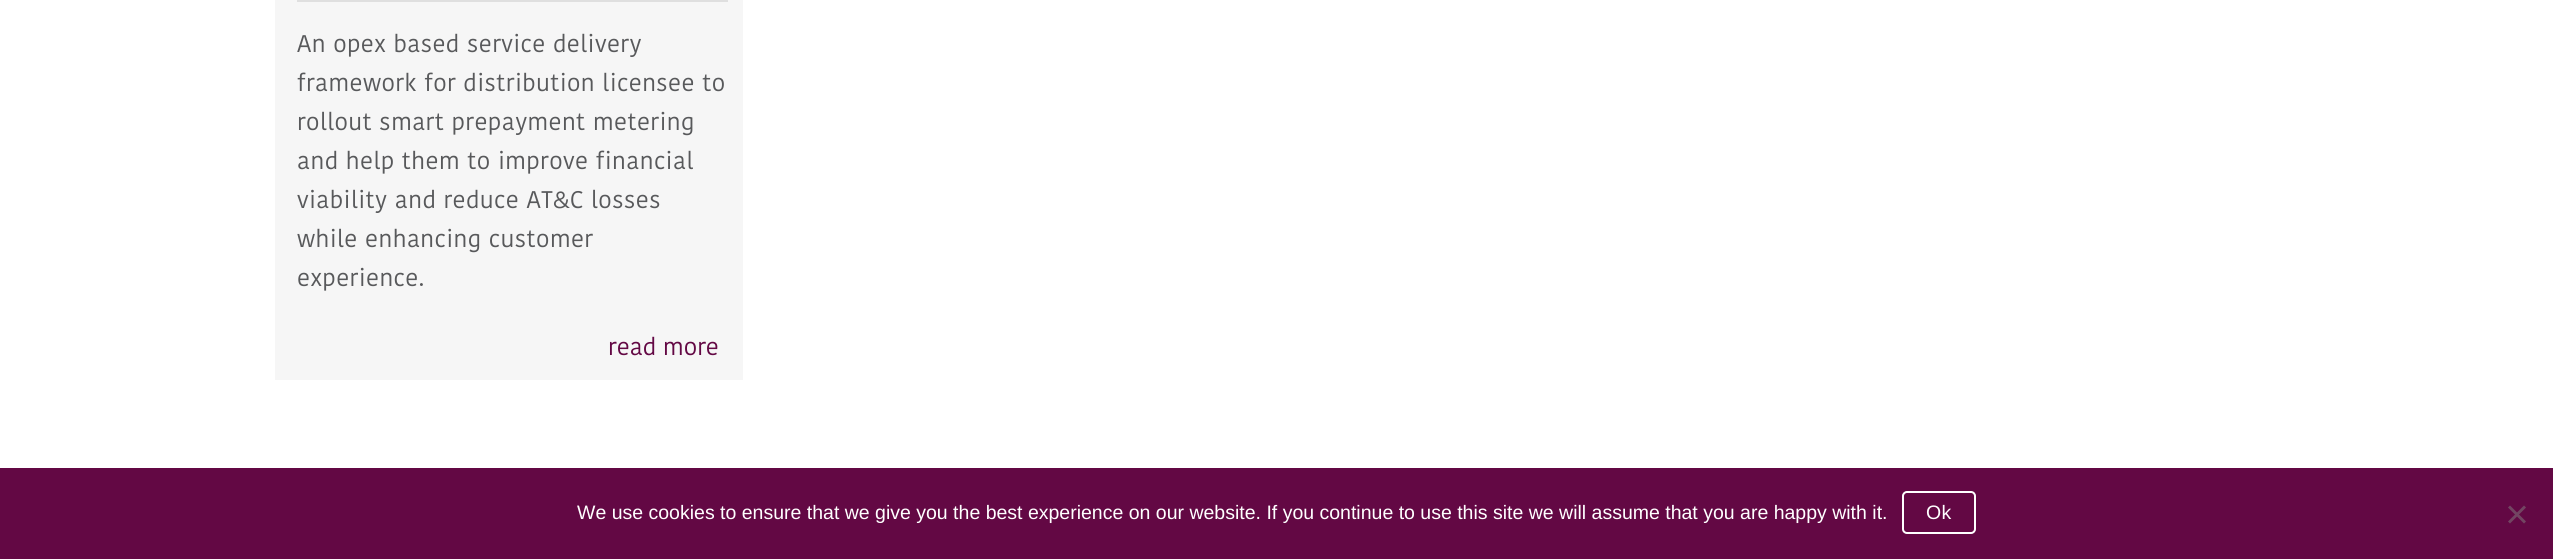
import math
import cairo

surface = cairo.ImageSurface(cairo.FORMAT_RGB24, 2553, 559)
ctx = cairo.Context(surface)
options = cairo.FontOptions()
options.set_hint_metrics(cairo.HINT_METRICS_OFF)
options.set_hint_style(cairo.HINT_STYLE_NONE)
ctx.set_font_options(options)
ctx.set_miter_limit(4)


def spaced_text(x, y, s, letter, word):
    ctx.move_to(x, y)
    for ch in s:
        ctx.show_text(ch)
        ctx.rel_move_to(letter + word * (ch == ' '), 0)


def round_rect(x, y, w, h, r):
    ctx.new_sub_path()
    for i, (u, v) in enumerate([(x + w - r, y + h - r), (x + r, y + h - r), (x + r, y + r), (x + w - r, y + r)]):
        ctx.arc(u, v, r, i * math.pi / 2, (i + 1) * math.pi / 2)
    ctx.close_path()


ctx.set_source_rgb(1, 1, 1)
ctx.paint()
ctx.set_source_rgb(0.961, 0.961, 0.961)
ctx.rectangle(275, 0, 468, 380)
ctx.fill()
ctx.set_source_rgb(0.875, 0.875, 0.875)
ctx.rectangle(297, 0, 431, 2)
ctx.fill()
ctx.select_font_face("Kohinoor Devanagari")
ctx.set_font_size(24)
ctx.set_source_rgb(0.345, 0.349, 0.357)
spaced_text(297, 52, "An opex based service delivery", 0.4, 0)
spaced_text(297, 91, "framework for distribution licensee to", 0.4, 0)
spaced_text(297, 130, "rollout smart prepayment metering", 0.4, 0)
spaced_text(297, 169, "and help them to improve financial", 0.4, 0)
spaced_text(297, 208, "viability and reduce AT&C losses", 0.4, 0)
spaced_text(297, 247, "while enhancing customer", 0.4, 0)
spaced_text(297, 286, "experience.", 0.4, 0)
ctx.set_source_rgb(0.388, 0.035, 0.267)
ctx.move_to(608, 355)
ctx.show_text("read more")
ctx.rectangle(0, 468, 2553, 91)
ctx.fill()
ctx.select_font_face("Liberation Sans")
ctx.set_font_size(19.5)
ctx.set_source_rgb(1, 1, 1)
ctx.move_to(577, 519)
ctx.show_text("We use cookies to ensure that we give you the best experience on our website. If you continue to use this site we will assume that you are happy with it.")
round_rect(1903, 492, 72, 41, 4)
ctx.stroke()
spaced_text(1926, 519, "Ok", 0.4, 0)
ctx.set_source_rgb(0.447, 0.271, 0.384)
ctx.new_path()
ctx.move_to(2524, 505.5)
ctx.line_to(2526, 507.5)
ctx.line_to(2510, 523.5)
ctx.line_to(2508, 521.5)
ctx.close_path()
ctx.fill()
ctx.new_path()
ctx.move_to(2508, 507.5)
ctx.line_to(2510, 505.5)
ctx.line_to(2526, 521.5)
ctx.line_to(2524, 523.5)
ctx.close_path()
ctx.fill()
surface.write_to_png("page.png")
